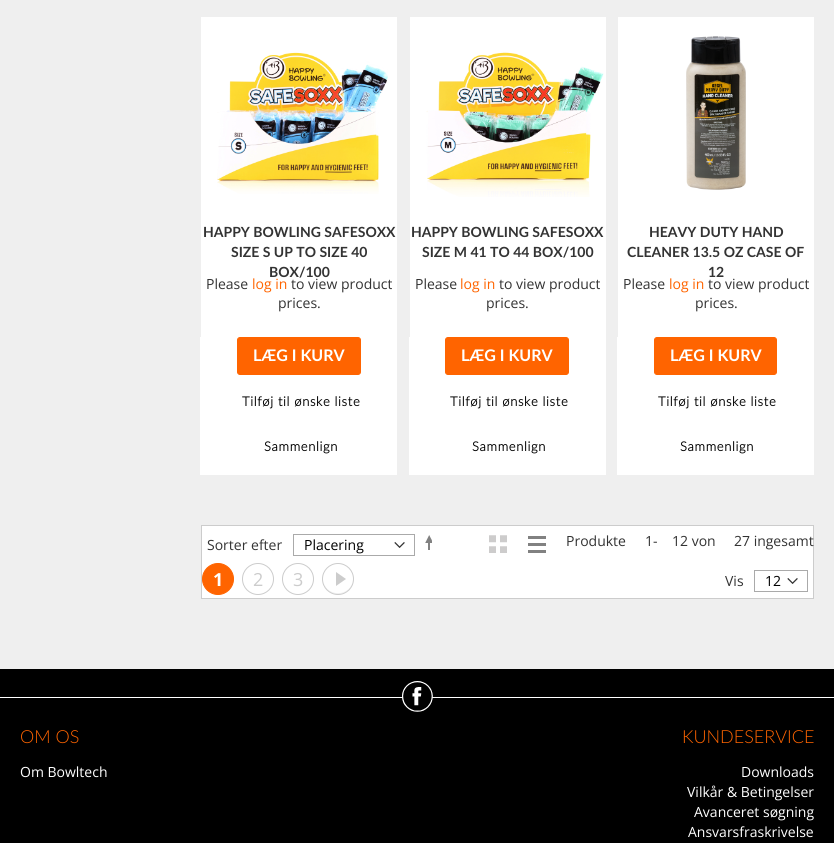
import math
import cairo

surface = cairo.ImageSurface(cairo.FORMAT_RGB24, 834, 843)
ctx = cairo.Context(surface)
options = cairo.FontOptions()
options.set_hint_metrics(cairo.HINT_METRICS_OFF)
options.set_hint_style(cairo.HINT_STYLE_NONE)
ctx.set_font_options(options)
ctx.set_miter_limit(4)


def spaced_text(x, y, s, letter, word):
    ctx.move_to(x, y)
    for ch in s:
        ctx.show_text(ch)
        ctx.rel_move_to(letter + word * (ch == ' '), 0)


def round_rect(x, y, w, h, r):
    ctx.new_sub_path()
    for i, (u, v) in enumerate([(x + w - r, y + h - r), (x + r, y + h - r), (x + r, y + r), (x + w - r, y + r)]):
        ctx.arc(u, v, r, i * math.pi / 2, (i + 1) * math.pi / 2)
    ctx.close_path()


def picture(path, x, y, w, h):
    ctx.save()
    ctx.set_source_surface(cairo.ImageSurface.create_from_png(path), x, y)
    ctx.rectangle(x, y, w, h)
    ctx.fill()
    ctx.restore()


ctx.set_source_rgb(0.937, 0.937, 0.937)
ctx.paint()
ctx.set_source_rgb(1, 1, 1)
ctx.rectangle(201, 17, 196, 320)
ctx.fill()
picture("img1.png", 217, 52, 171, 142)
ctx.select_font_face("Lato", cairo.FONT_SLANT_NORMAL, cairo.FONT_WEIGHT_BOLD)
ctx.set_font_size(14)
ctx.set_source_rgb(0.2, 0.2, 0.2)
ctx.move_to(203, 237)
ctx.show_text("HAPPY BOWLING SAFESOXX")
ctx.move_to(231, 257)
ctx.show_text("SIZE S UP TO SIZE 40")
ctx.move_to(269, 277)
ctx.show_text("BOX/100")
ctx.select_font_face("Open Sans")
ctx.move_to(206, 289)
ctx.show_text("Please")
ctx.set_source_rgb(1, 0.392, 0)
ctx.move_to(252, 289)
ctx.show_text("log in")
ctx.set_source_rgb(0.2, 0.2, 0.2)
ctx.move_to(291, 289)
ctx.show_text("to view product")
ctx.move_to(278, 308)
ctx.show_text("prices.")
ctx.set_source_rgb(1, 1, 1)
ctx.rectangle(200, 337, 197, 138)
ctx.fill()
ctx.set_source_rgb(1, 0.392, 0)
round_rect(237.5, 337.5, 123, 37, 2.5)
ctx.fill_preserve()
ctx.set_line_width(1)
ctx.stroke()
ctx.select_font_face("Lato", cairo.FONT_SLANT_NORMAL, cairo.FONT_WEIGHT_BOLD)
ctx.set_font_size(16)
ctx.set_source_rgb(1, 1, 1)
ctx.move_to(253, 361)
ctx.show_text("LÆG I KURV")
ctx.select_font_face("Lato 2", cairo.FONT_SLANT_NORMAL, cairo.FONT_WEIGHT_BOLD)
ctx.set_font_size(13)
ctx.set_source_rgb(0, 0, 0)
spaced_text(242, 406, "Tilføj til ønske liste", 0.65, 0)
spaced_text(264, 451, "Sammenlign", 0.65, 0)
ctx.set_source_rgb(1, 1, 1)
ctx.rectangle(410, 17, 196, 320)
ctx.fill()
picture("img2.png", 426, 52, 178, 145)
ctx.select_font_face("Lato", cairo.FONT_SLANT_NORMAL, cairo.FONT_WEIGHT_BOLD)
ctx.set_font_size(14)
ctx.set_source_rgb(0.2, 0.2, 0.2)
ctx.move_to(411, 237)
ctx.show_text("HAPPY BOWLING SAFESOXX")
ctx.move_to(422, 257)
ctx.show_text("SIZE M 41 TO 44 BOX/100")
ctx.select_font_face("Open Sans")
ctx.move_to(415, 289)
ctx.show_text("Please")
ctx.set_source_rgb(1, 0.392, 0)
ctx.move_to(460, 289)
ctx.show_text("log in")
ctx.set_source_rgb(0.2, 0.2, 0.2)
ctx.move_to(499, 289)
ctx.show_text("to view product")
ctx.move_to(486, 308)
ctx.show_text("prices.")
ctx.set_source_rgb(1, 1, 1)
ctx.rectangle(409, 337, 197, 138)
ctx.fill()
ctx.set_source_rgb(1, 0.392, 0)
round_rect(445.5, 337.5, 123, 37, 2.5)
ctx.fill_preserve()
ctx.stroke()
ctx.select_font_face("Lato", cairo.FONT_SLANT_NORMAL, cairo.FONT_WEIGHT_BOLD)
ctx.set_font_size(16)
ctx.set_source_rgb(1, 1, 1)
ctx.move_to(461, 361)
ctx.show_text("LÆG I KURV")
ctx.select_font_face("Lato 2", cairo.FONT_SLANT_NORMAL, cairo.FONT_WEIGHT_BOLD)
ctx.set_font_size(13)
ctx.set_source_rgb(0, 0, 0)
spaced_text(450, 406, "Tilføj til ønske liste", 0.65, 0)
spaced_text(472, 451, "Sammenlign", 0.65, 0)
ctx.set_source_rgb(1, 1, 1)
ctx.rectangle(618, 17, 196, 320)
ctx.fill()
picture("img3.png", 686, 36, 60, 154)
ctx.select_font_face("Lato", cairo.FONT_SLANT_NORMAL, cairo.FONT_WEIGHT_BOLD)
ctx.set_font_size(14)
ctx.set_source_rgb(0.2, 0.2, 0.2)
ctx.move_to(649, 237)
ctx.show_text("HEAVY DUTY HAND")
ctx.move_to(627, 257)
ctx.show_text("CLEANER 13.5 OZ CASE OF")
ctx.move_to(708, 277)
ctx.show_text("12")
ctx.select_font_face("Open Sans")
ctx.move_to(623, 289)
ctx.show_text("Please")
ctx.set_source_rgb(1, 0.392, 0)
ctx.move_to(669, 289)
ctx.show_text("log in")
ctx.set_source_rgb(0.2, 0.2, 0.2)
ctx.move_to(708, 289)
ctx.show_text("to view product")
ctx.move_to(695, 308)
ctx.show_text("prices.")
ctx.set_source_rgb(1, 1, 1)
ctx.rectangle(617, 337, 197, 138)
ctx.fill()
ctx.set_source_rgb(1, 0.392, 0)
round_rect(654.5, 337.5, 122, 37, 2.5)
ctx.fill_preserve()
ctx.stroke()
ctx.select_font_face("Lato", cairo.FONT_SLANT_NORMAL, cairo.FONT_WEIGHT_BOLD)
ctx.set_font_size(16)
ctx.set_source_rgb(1, 1, 1)
ctx.move_to(670, 361)
ctx.show_text("LÆG I KURV")
ctx.select_font_face("Lato 2", cairo.FONT_SLANT_NORMAL, cairo.FONT_WEIGHT_BOLD)
ctx.set_font_size(13)
ctx.set_source_rgb(0, 0, 0)
spaced_text(658, 406, "Tilføj til ønske liste", 0.65, 0)
spaced_text(680, 451, "Sammenlign", 0.65, 0)
ctx.set_source_rgb(1, 1, 1)
ctx.rectangle(201.5, 525.5, 612, 73)
ctx.fill_preserve()
ctx.set_source_rgb(0.8, 0.8, 0.8)
ctx.stroke()
ctx.select_font_face("Open Sans")
ctx.set_font_size(14)
ctx.set_source_rgb(0.2, 0.2, 0.2)
ctx.move_to(566, 546)
ctx.show_text("Produkte")
ctx.move_to(645, 546)
ctx.show_text("1-")
ctx.move_to(672, 546)
ctx.show_text("12 von")
ctx.move_to(734, 546)
ctx.show_text("27 ingesamt")
ctx.move_to(207, 550)
ctx.show_text("Sorter efter")
picture("img4.png", 394, 542, 11, 6)
ctx.rectangle(293.5, 534.5, 121, 21)
ctx.set_source_rgb(0.667, 0.667, 0.667)
ctx.stroke()
ctx.set_source_rgb(0, 0, 0)
ctx.move_to(304, 550)
ctx.show_text("Placering")
picture("img5.png", 425, 535, 7, 15)
picture("img6.png", 489, 535, 18, 18)
picture("img7.png", 528, 536, 18, 17)
ctx.set_source_rgb(1, 0.392, 0)
ctx.arc(218, 579, 15.5, 0, 2 * math.pi)
ctx.fill_preserve()
ctx.stroke()
ctx.select_font_face("Open Sans", cairo.FONT_SLANT_NORMAL, cairo.FONT_WEIGHT_BOLD)
ctx.set_font_size(18)
ctx.set_source_rgb(1, 1, 1)
ctx.move_to(213, 586)
ctx.show_text("1")
ctx.new_path()
ctx.arc(258, 579, 15.5, 0, 2 * math.pi)
ctx.set_source_rgb(0.8, 0.8, 0.8)
ctx.stroke()
ctx.select_font_face("Open Sans")
ctx.move_to(253, 586)
ctx.show_text("2")
ctx.new_path()
ctx.arc(298, 579, 15.5, 0, 2 * math.pi)
ctx.stroke()
ctx.move_to(293, 586)
ctx.show_text("3")
ctx.set_source_rgb(0.941, 0.941, 0.941)
ctx.new_path()
ctx.move_to(353, 578.5)
ctx.curve_to(352.5, 598, 323.5, 598, 323, 578.5)
ctx.curve_to(323, 581.5, 324, 585, 325.5, 587.5)
ctx.curve_to(334, 600, 353.5, 593.5, 353, 578.5)
ctx.close_path()
ctx.fill()
ctx.arc(338, 579, 15.5, 0, 2 * math.pi)
ctx.set_source_rgb(0.8, 0.8, 0.8)
ctx.stroke()
ctx.new_path()
ctx.move_to(336, 572)
ctx.line_to(336, 586)
ctx.line_to(346, 579)
ctx.close_path()
ctx.fill()
ctx.set_font_size(14)
ctx.set_source_rgb(0.2, 0.2, 0.2)
ctx.move_to(725, 586)
ctx.show_text("Vis")
picture("img4.png", 787, 578, 11, 6)
ctx.rectangle(754.5, 570.5, 53, 21)
ctx.set_source_rgb(0.667, 0.667, 0.667)
ctx.stroke()
ctx.set_source_rgb(0, 0, 0)
ctx.move_to(765, 586)
ctx.show_text("12")
ctx.rectangle(0, 669, 834, 28)
ctx.fill()
ctx.set_source_rgb(1, 1, 1)
ctx.rectangle(0, 697, 834, 1)
ctx.fill()
ctx.set_source_rgb(0, 0, 0)
ctx.rectangle(0, 698, 834, 145)
ctx.fill()
picture("img8.png", 402, 681, 31, 31)
ctx.select_font_face("Lato Light")
ctx.set_font_size(18)
ctx.set_source_rgb(1, 0.392, 0)
ctx.move_to(20, 743)
ctx.show_text("OM OS")
ctx.select_font_face("Open Sans")
ctx.set_font_size(14)
ctx.set_source_rgb(1, 1, 1)
ctx.move_to(20, 777)
ctx.show_text("Om Bowltech")
ctx.select_font_face("Lato Light")
ctx.set_font_size(18)
ctx.set_source_rgb(1, 0.392, 0)
ctx.move_to(682, 743)
ctx.show_text("KUNDESERVICE")
ctx.select_font_face("Open Sans")
ctx.set_font_size(14)
ctx.set_source_rgb(1, 1, 1)
ctx.move_to(741, 777)
ctx.show_text("Downloads")
ctx.move_to(687, 797)
ctx.show_text("Vilkår & Betingelser")
ctx.move_to(694, 817)
ctx.show_text("Avanceret søgning")
ctx.move_to(688, 837)
ctx.show_text("Ansvarsfraskrivelse")
surface.write_to_png("page.png")
